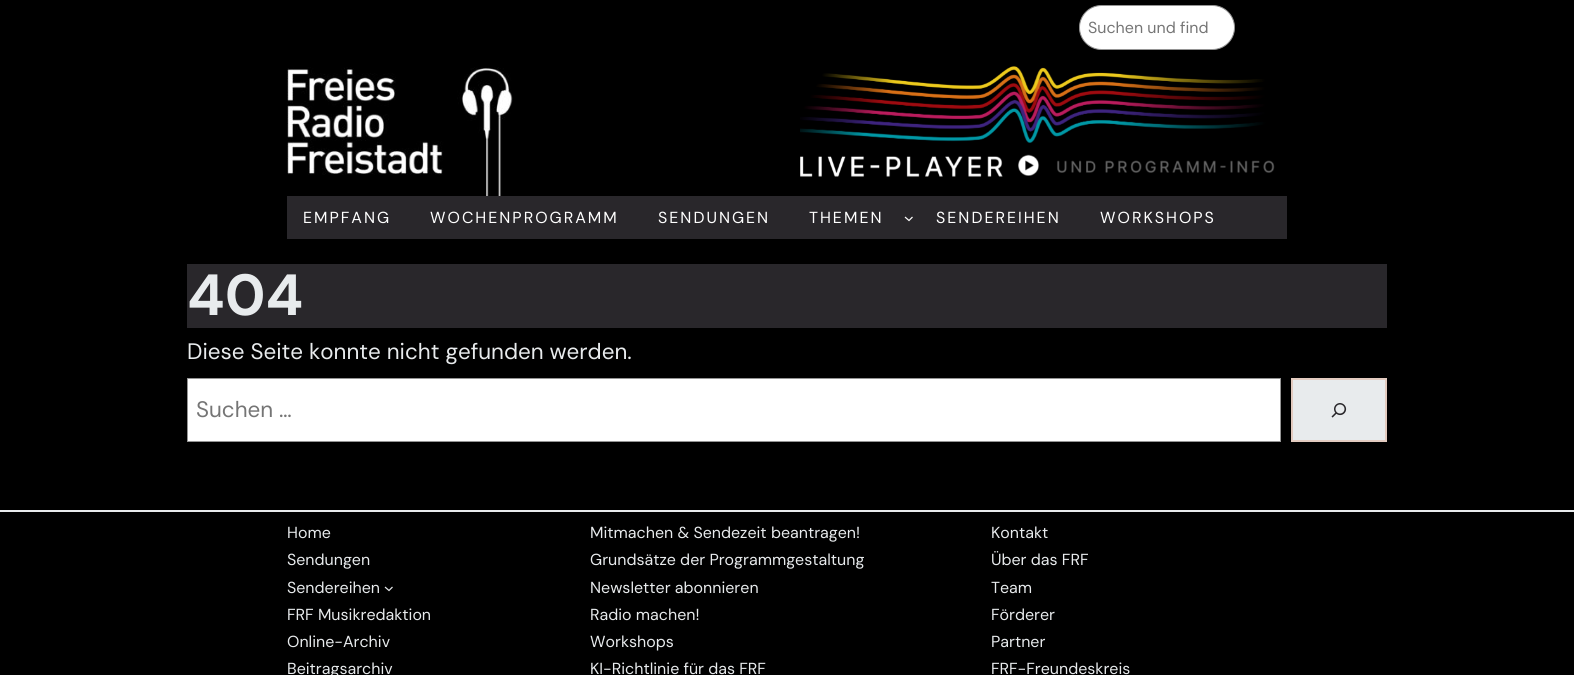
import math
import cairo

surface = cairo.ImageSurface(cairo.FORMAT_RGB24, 1574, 675)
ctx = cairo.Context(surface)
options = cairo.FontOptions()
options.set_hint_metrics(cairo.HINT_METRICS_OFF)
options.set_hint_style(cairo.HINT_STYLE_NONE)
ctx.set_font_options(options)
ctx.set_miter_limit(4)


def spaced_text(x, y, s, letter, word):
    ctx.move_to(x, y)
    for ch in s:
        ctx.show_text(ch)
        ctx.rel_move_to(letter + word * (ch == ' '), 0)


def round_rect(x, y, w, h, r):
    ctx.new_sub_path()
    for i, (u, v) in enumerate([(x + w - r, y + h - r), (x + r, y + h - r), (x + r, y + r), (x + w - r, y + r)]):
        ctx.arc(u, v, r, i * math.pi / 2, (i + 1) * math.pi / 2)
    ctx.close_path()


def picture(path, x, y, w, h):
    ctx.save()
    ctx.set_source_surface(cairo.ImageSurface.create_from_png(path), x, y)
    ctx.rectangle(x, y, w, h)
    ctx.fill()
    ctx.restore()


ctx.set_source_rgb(0, 0, 0)
ctx.paint()
ctx.set_source_rgb(1, 1, 1)
round_rect(1079.5, 5.5, 155, 44, 22)
ctx.fill_preserve()
ctx.set_source_rgb(0.58, 0.58, 0.58)
ctx.set_line_width(1)
ctx.stroke()
ctx.select_font_face("DM Sans")
ctx.set_font_size(16)
ctx.set_source_rgb(0.459, 0.459, 0.459)
ctx.move_to(1088, 33)
ctx.show_text("Suchen und find")
picture("img1.png", 800, 66, 475, 111)
picture("img2.png", 287, 67, 226, 129)
ctx.set_source_rgb(0.161, 0.153, 0.169)
ctx.rectangle(287, 196, 1000, 43)
ctx.fill()
ctx.set_source_rgb(1, 1, 1)
spaced_text(303, 223, "EMPFANG", 2, 0)
spaced_text(430, 223, "WOCHENPROGRAMM", 2, 0)
spaced_text(658, 223, "SENDUNGEN", 2, 0)
spaced_text(809, 223, "THEMEN", 2, 0)
ctx.new_path()
ctx.move_to(905, 217)
ctx.line_to(909, 220.5)
ctx.line_to(912.5, 217)
ctx.set_line_width(1.2)
ctx.stroke()
spaced_text(936, 223, "SENDEREIHEN", 2, 0)
spaced_text(1100, 223, "WORKSHOPS", 2, 0)
ctx.set_source_rgb(0.161, 0.153, 0.169)
ctx.rectangle(187, 264, 1200, 64)
ctx.fill()
ctx.select_font_face("DM Sans", cairo.FONT_SLANT_NORMAL, cairo.FONT_WEIGHT_BOLD)
ctx.set_font_size(58)
ctx.set_source_rgb(0.91, 0.918, 0.929)
ctx.move_to(187, 315)
ctx.show_text("404")
ctx.select_font_face("DM Sans")
ctx.set_font_size(22.4)
ctx.move_to(187, 359)
ctx.show_text("Diese Seite konnte nicht gefunden werden.")
ctx.set_source_rgb(1, 1, 1)
ctx.rectangle(187.5, 378.5, 1093, 63)
ctx.fill_preserve()
ctx.set_source_rgb(0.58, 0.58, 0.58)
ctx.set_line_width(1)
ctx.stroke()
ctx.set_source_rgb(0.459, 0.459, 0.459)
ctx.move_to(196, 417)
ctx.show_text("Suchen …")
ctx.set_source_rgb(0.91, 0.918, 0.929)
ctx.rectangle(1292, 379, 94, 62)
ctx.fill_preserve()
ctx.set_source_rgb(0.89, 0.796, 0.753)
ctx.set_line_width(2)
ctx.stroke()
picture("img3.png", 1331, 403, 16, 15)
ctx.set_source_rgb(0.91, 0.918, 0.929)
ctx.rectangle(0, 510, 1574, 2)
ctx.fill()
ctx.set_font_size(16)
ctx.move_to(287, 538)
ctx.show_text("Home")
ctx.move_to(287, 565)
ctx.show_text("Sendungen")
ctx.move_to(287, 593)
ctx.show_text("Sendereihen")
ctx.new_path()
ctx.move_to(385, 587)
ctx.line_to(389, 590.5)
ctx.line_to(392.5, 587)
ctx.set_line_width(1.2)
ctx.stroke()
ctx.move_to(287, 620)
ctx.show_text("FRF Musikredaktion")
ctx.move_to(287, 647)
ctx.show_text("Online-Archiv")
ctx.move_to(287, 674)
ctx.show_text("Beitragsarchiv")
ctx.move_to(590, 538)
ctx.show_text("Mitmachen & Sendezeit beantragen!")
ctx.move_to(590, 565)
ctx.show_text("Grundsätze der Programmgestaltung")
ctx.move_to(590, 593)
ctx.show_text("Newsletter abonnieren")
ctx.move_to(590, 620)
ctx.show_text("Radio machen!")
ctx.move_to(590, 647)
ctx.show_text("Workshops")
ctx.move_to(590, 674)
ctx.show_text("KI-Richtlinie für das FRF")
ctx.move_to(991, 538)
ctx.show_text("Kontakt")
ctx.move_to(991, 565)
ctx.show_text("Über das FRF")
ctx.move_to(991, 593)
ctx.show_text("Team")
ctx.move_to(991, 620)
ctx.show_text("Förderer")
ctx.move_to(991, 647)
ctx.show_text("Partner")
ctx.move_to(991, 674)
ctx.show_text("FRF-Freundeskreis")
surface.write_to_png("page.png")
